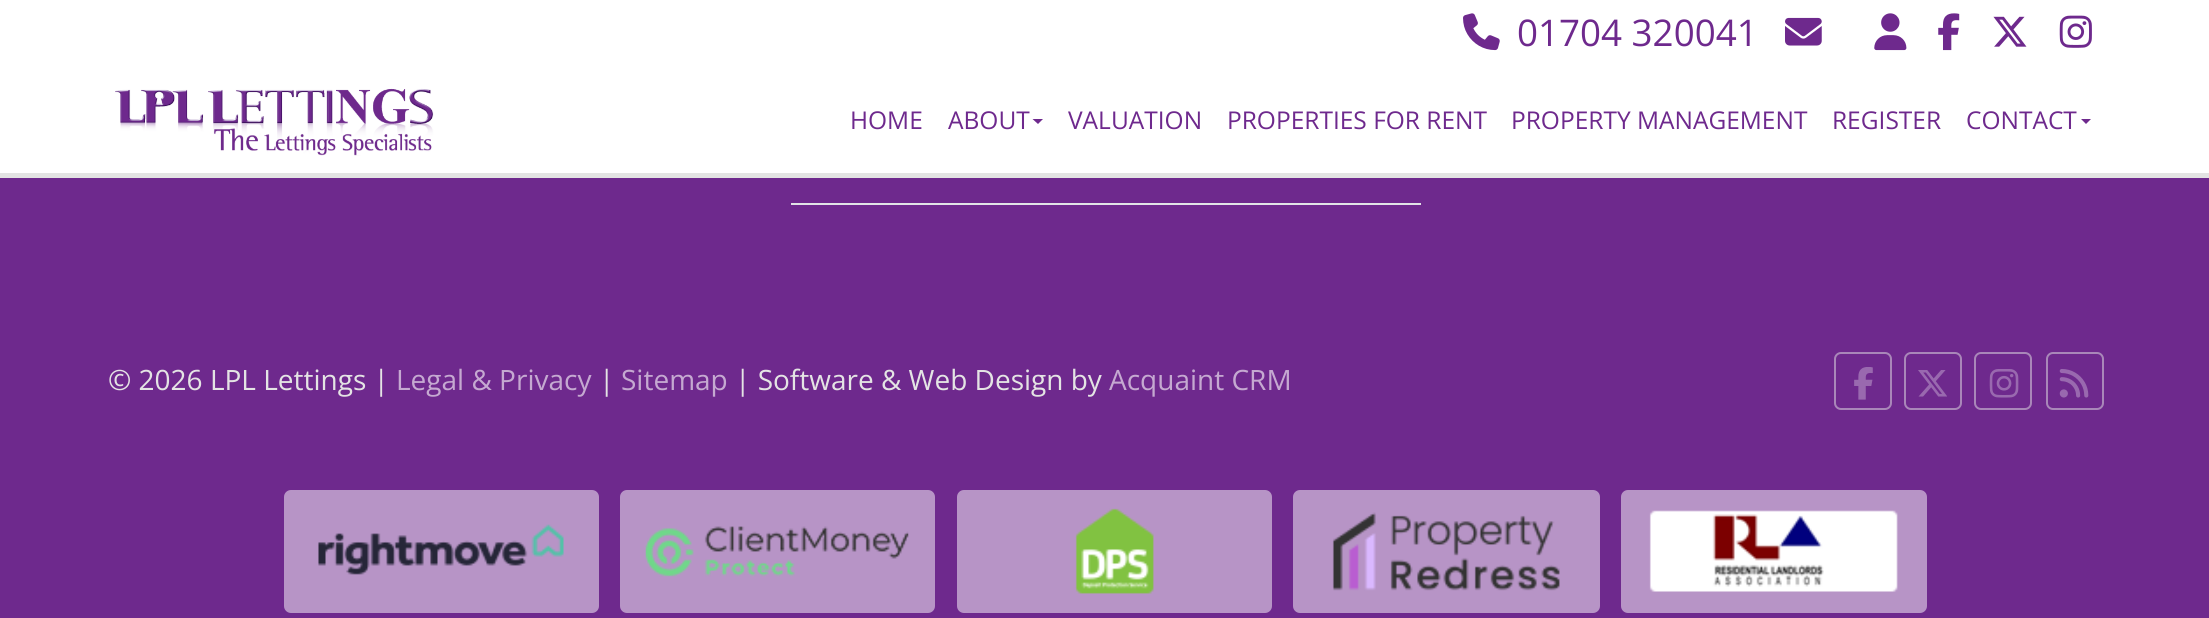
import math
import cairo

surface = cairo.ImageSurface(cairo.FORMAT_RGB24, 2209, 618)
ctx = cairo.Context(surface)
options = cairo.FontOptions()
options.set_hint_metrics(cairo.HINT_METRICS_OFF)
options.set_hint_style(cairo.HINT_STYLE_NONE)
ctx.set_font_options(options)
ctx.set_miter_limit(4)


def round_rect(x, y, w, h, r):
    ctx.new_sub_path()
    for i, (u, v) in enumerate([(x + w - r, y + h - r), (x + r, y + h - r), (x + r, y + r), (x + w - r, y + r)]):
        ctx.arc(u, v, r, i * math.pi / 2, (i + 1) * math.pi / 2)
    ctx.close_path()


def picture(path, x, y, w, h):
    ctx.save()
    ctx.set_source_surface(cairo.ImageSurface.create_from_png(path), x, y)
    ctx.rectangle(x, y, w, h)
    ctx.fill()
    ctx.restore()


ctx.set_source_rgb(0.431, 0.161, 0.553)
ctx.paint()
ctx.set_source_rgb(1, 1, 1)
ctx.rectangle(0, 0, 2209, 173)
ctx.fill()
picture("img1.png", 1463, 13, 37, 38)
ctx.select_font_face("Open Sans")
ctx.set_font_size(36.75)
ctx.set_source_rgb(0.431, 0.161, 0.553)
ctx.move_to(1517, 46)
ctx.show_text("01704 320041")
picture("img2.png", 1785, 17, 37, 29)
picture("img3.png", 1874, 13, 33, 38)
picture("img4.png", 1938, 13, 22, 38)
picture("img5.png", 1993, 16, 34, 31)
picture("img6.png", 2059, 15, 33, 33)
picture("img7.png", 115, 88, 319, 68)
ctx.set_font_size(24.5)
ctx.move_to(850, 129)
ctx.show_text("HOME")
ctx.move_to(948, 129)
ctx.show_text("ABOUT")
ctx.new_path()
ctx.move_to(1032.5, 119)
ctx.line_to(1043, 119)
ctx.line_to(1038, 124)
ctx.close_path()
ctx.fill()
ctx.move_to(1068, 129)
ctx.show_text("VALUATION")
ctx.move_to(1227, 129)
ctx.show_text("PROPERTIES FOR RENT")
ctx.move_to(1511, 129)
ctx.show_text("PROPERTY MANAGEMENT")
ctx.move_to(1832, 129)
ctx.show_text("REGISTER")
ctx.move_to(1966, 129)
ctx.show_text("CONTACT")
ctx.new_path()
ctx.move_to(2081, 119)
ctx.line_to(2091, 119)
ctx.line_to(2086, 124)
ctx.close_path()
ctx.fill()
ctx.set_source_rgb(0.89, 0.89, 0.89)
ctx.rectangle(0, 173, 2209, 5)
ctx.fill()
ctx.set_source_rgb(0.886, 0.89, 0.906)
ctx.rectangle(791, 203, 630, 2)
ctx.fill()
ctx.set_font_size(28)
ctx.set_source_rgb(0.894, 0.894, 0.894)
ctx.move_to(108, 390)
ctx.show_text("© 2026 LPL Lettings |")
ctx.set_source_rgb(0.773, 0.663, 0.82)
ctx.move_to(396, 390)
ctx.show_text("Legal & Privacy")
ctx.set_source_rgb(0.894, 0.894, 0.894)
ctx.move_to(599, 390)
ctx.show_text("|")
ctx.set_source_rgb(0.773, 0.663, 0.82)
ctx.move_to(621, 390)
ctx.show_text("Sitemap")
ctx.set_source_rgb(0.894, 0.894, 0.894)
ctx.move_to(735, 390)
ctx.show_text("| Software & Web Design by")
ctx.set_source_rgb(0.773, 0.663, 0.82)
ctx.move_to(1109, 390)
ctx.show_text("Acquaint CRM")
round_rect(1835, 353, 56, 56, 6)
ctx.set_source_rgb(0.663, 0.529, 0.725)
ctx.stroke()
picture("img8.png", 1854, 367, 19, 33)
round_rect(1905, 353, 56, 56, 6)
ctx.stroke()
picture("img9.png", 1918, 370, 29, 27)
round_rect(1975, 353, 56, 56, 6)
ctx.stroke()
picture("img10.png", 1989, 369, 30, 29)
round_rect(2047, 353, 56, 56, 6)
ctx.stroke()
picture("img11.png", 2059, 369, 30, 29)
ctx.set_source_rgb(0.718, 0.58, 0.776)
round_rect(284, 490, 315, 123, 7)
ctx.fill()
picture("img12.png", 318, 524, 246, 51)
round_rect(620, 490, 315, 123, 7)
ctx.fill()
picture("img13.png", 645, 526, 264, 51)
round_rect(957, 490, 315, 123, 7)
ctx.fill()
picture("img14.png", 1075, 508, 79, 86)
round_rect(1293, 490, 307, 123, 7)
ctx.fill()
picture("img15.png", 1332, 512, 228, 79)
round_rect(1621, 490, 306, 123, 7)
ctx.fill()
picture("img16.png", 1649, 510, 249, 82)
surface.write_to_png("page.png")
